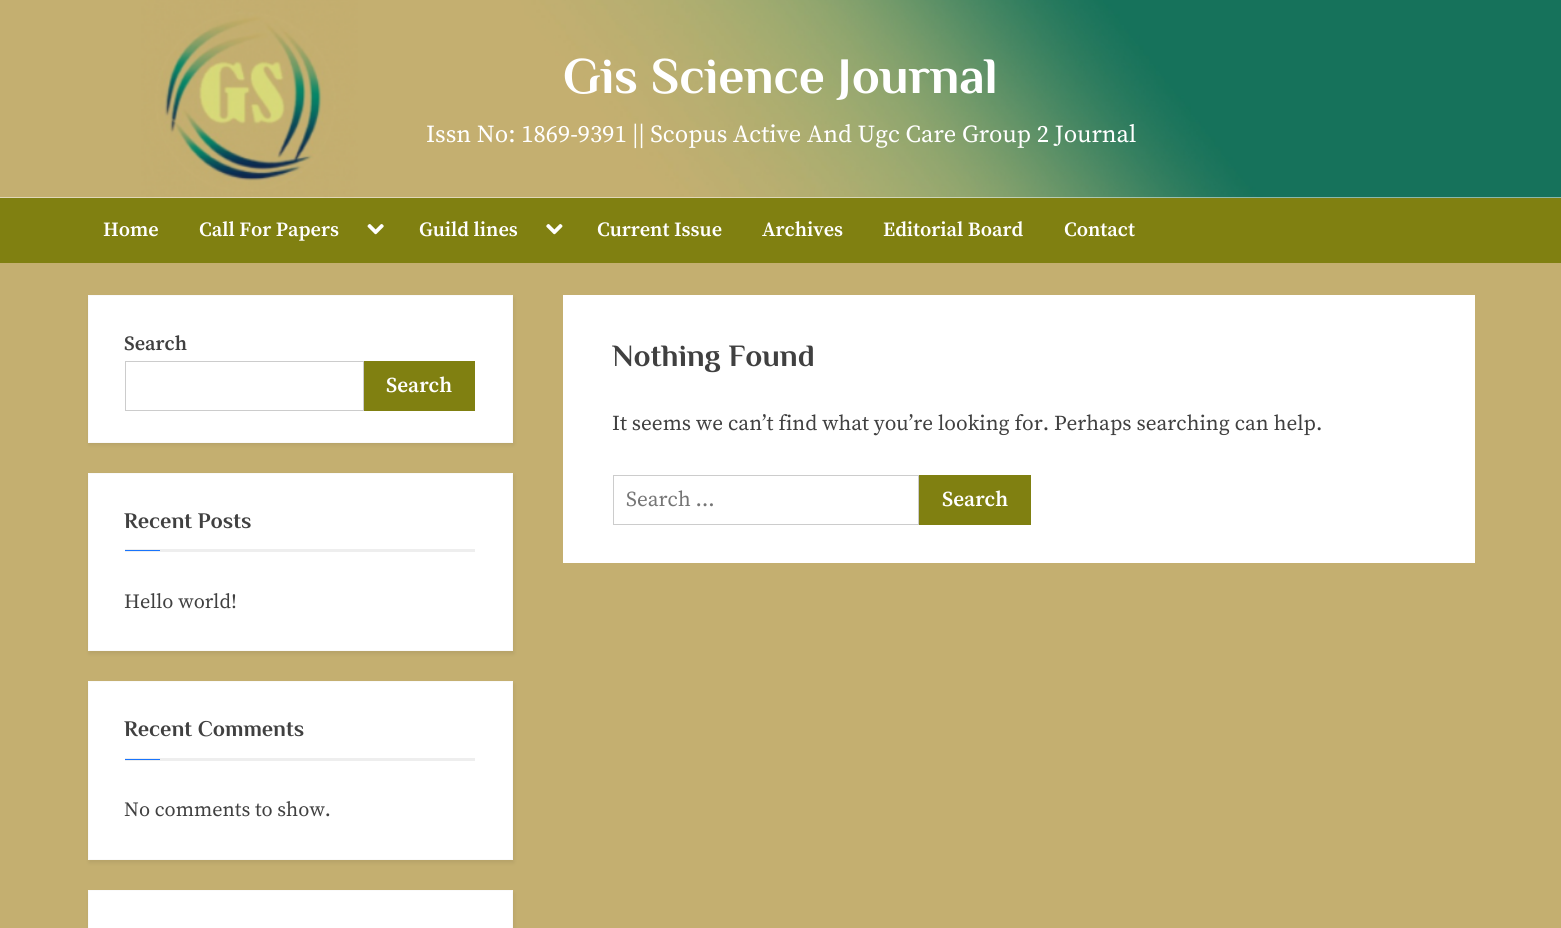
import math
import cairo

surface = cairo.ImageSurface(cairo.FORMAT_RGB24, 1561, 928)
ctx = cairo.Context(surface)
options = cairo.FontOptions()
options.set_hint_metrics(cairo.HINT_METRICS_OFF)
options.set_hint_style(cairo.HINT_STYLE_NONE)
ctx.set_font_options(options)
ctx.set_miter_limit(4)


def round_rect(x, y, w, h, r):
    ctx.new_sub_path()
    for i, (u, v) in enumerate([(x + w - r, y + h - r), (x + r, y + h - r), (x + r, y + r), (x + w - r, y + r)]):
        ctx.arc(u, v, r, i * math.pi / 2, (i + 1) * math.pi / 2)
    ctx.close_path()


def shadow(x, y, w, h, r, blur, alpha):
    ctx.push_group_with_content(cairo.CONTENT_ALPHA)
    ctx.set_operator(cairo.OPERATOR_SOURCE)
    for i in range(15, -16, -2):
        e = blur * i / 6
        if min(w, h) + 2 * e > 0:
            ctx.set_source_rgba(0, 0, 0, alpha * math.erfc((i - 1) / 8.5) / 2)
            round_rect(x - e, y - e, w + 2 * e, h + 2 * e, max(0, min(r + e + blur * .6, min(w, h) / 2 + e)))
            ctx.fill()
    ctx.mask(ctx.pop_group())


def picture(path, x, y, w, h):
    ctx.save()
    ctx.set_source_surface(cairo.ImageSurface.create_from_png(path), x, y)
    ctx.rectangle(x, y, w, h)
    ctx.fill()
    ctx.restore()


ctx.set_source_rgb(0.769, 0.686, 0.439)
ctx.paint()
ctx.set_source_rgb(1, 1, 1)
ctx.rectangle(0, 197, 1561, 1)
ctx.fill()
picture("img1.png", 0, 0, 1561, 198)
ctx.select_font_face("Philosopher", cairo.FONT_SLANT_NORMAL, cairo.FONT_WEIGHT_BOLD)
ctx.set_font_size(51)
ctx.move_to(563, 93)
ctx.show_text("Gis Science Journal")
ctx.select_font_face("Source Serif Pro")
ctx.set_font_size(24.45)
ctx.move_to(426, 142)
ctx.show_text("Issn No: 1869-9391 || Scopus Active And Ugc Care Group 2 Journal")
ctx.set_source_rgb(0.502, 0.502, 0.067)
ctx.rectangle(0, 198, 1561, 65)
ctx.fill()
ctx.select_font_face("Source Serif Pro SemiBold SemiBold")
ctx.set_font_size(20.25)
ctx.set_source_rgb(1, 1, 1)
ctx.move_to(103, 236)
ctx.show_text("Home")
ctx.move_to(199, 236)
ctx.show_text("Call For Papers")
picture("img2.png", 367, 224, 17, 11)
ctx.move_to(419, 236)
ctx.show_text("Guild lines")
picture("img3.png", 546, 224, 17, 11)
ctx.move_to(597, 236)
ctx.show_text("Current Issue")
ctx.move_to(762, 236)
ctx.show_text("Archives")
ctx.move_to(883, 236)
ctx.show_text("Editorial Board")
ctx.move_to(1064, 236)
ctx.show_text("Contact")
ctx.set_source_rgb(0, 0, 0)
shadow(89, 298, 425, 147, 0, 2, 0.07)
ctx.set_source_rgb(1, 1, 1)
ctx.rectangle(88.5, 295.5, 424, 147)
ctx.fill_preserve()
ctx.set_source_rgb(0.98, 0.98, 0.98)
ctx.set_line_width(1)
ctx.stroke()
ctx.set_source_rgb(0.251, 0.251, 0.251)
ctx.move_to(124, 350)
ctx.show_text("Search")
ctx.rectangle(125.5, 361.5, 238, 49)
ctx.set_source_rgb(0.8, 0.8, 0.8)
ctx.stroke()
ctx.set_source_rgb(0.502, 0.502, 0.067)
ctx.rectangle(364, 361, 111, 50)
ctx.fill()
ctx.set_font_size(21.25)
ctx.set_source_rgb(1, 1, 1)
ctx.move_to(386, 392)
ctx.show_text("Search")
ctx.set_source_rgb(0, 0, 0)
shadow(89, 475, 425, 179, 0, 2, 0.07)
ctx.set_source_rgb(1, 1, 1)
ctx.rectangle(88.5, 473.5, 424, 177)
ctx.fill_preserve()
ctx.set_source_rgb(0.98, 0.98, 0.98)
ctx.stroke()
ctx.set_source_rgb(0.933, 0.933, 0.933)
ctx.rectangle(125, 549, 350, 3)
ctx.fill()
ctx.select_font_face("Philosopher", cairo.FONT_SLANT_NORMAL, cairo.FONT_WEIGHT_BOLD)
ctx.set_font_size(22.25)
ctx.set_source_rgb(0.251, 0.251, 0.251)
ctx.move_to(124, 528)
ctx.show_text("Recent Posts")
ctx.set_source_rgb(0.098, 0.455, 0.988)
ctx.rectangle(125, 550, 35, 1)
ctx.fill()
ctx.select_font_face("Source Serif Pro")
ctx.set_font_size(20.25)
ctx.set_source_rgb(0.251, 0.251, 0.251)
ctx.move_to(124, 608)
ctx.show_text("Hello world!")
ctx.set_source_rgb(0, 0, 0)
shadow(89, 684, 425, 179, 0, 2, 0.07)
ctx.set_source_rgb(1, 1, 1)
ctx.rectangle(88.5, 681.5, 424, 178)
ctx.fill_preserve()
ctx.set_source_rgb(0.98, 0.98, 0.98)
ctx.stroke()
ctx.set_source_rgb(0.933, 0.933, 0.933)
ctx.rectangle(125, 758, 350, 3)
ctx.fill()
ctx.select_font_face("Philosopher", cairo.FONT_SLANT_NORMAL, cairo.FONT_WEIGHT_BOLD)
ctx.set_font_size(22.25)
ctx.set_source_rgb(0.251, 0.251, 0.251)
ctx.move_to(124, 736)
ctx.show_text("Recent Comments")
ctx.set_source_rgb(0.098, 0.455, 0.988)
ctx.rectangle(125, 759, 35, 1)
ctx.fill()
ctx.select_font_face("Source Serif Pro")
ctx.set_font_size(20.25)
ctx.set_source_rgb(0.251, 0.251, 0.251)
ctx.move_to(124, 816)
ctx.show_text("No comments to show.")
ctx.set_source_rgb(0, 0, 0)
shadow(89, 893, 425, 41, 0, 2, 0.07)
ctx.set_source_rgb(1, 1, 1)
ctx.rectangle(88.5, 890.5, 424, 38)
ctx.fill_preserve()
ctx.set_source_rgb(0.98, 0.98, 0.98)
ctx.stroke()
ctx.set_source_rgb(1, 1, 1)
ctx.rectangle(563, 295, 912, 268)
ctx.fill()
ctx.select_font_face("Philosopher", cairo.FONT_SLANT_NORMAL, cairo.FONT_WEIGHT_BOLD)
ctx.set_font_size(31)
ctx.set_source_rgb(0.251, 0.251, 0.251)
ctx.move_to(612, 366)
ctx.show_text("Nothing Found")
ctx.select_font_face("Source Serif Pro")
ctx.set_font_size(21.25)
ctx.move_to(612, 430)
ctx.show_text("It seems we can’t find what you’re looking for. Perhaps searching can help.")
ctx.rectangle(613.5, 475.5, 305, 49)
ctx.set_source_rgb(0.8, 0.8, 0.8)
ctx.stroke()
ctx.set_source_rgb(0.459, 0.459, 0.459)
ctx.move_to(626, 506)
ctx.show_text("Search …")
ctx.set_source_rgb(0.502, 0.502, 0.067)
ctx.rectangle(919, 475, 112, 50)
ctx.fill()
ctx.select_font_face("Source Serif Pro SemiBold SemiBold")
ctx.set_source_rgb(1, 1, 1)
ctx.move_to(942, 506)
ctx.show_text("Search")
surface.write_to_png("page.png")
